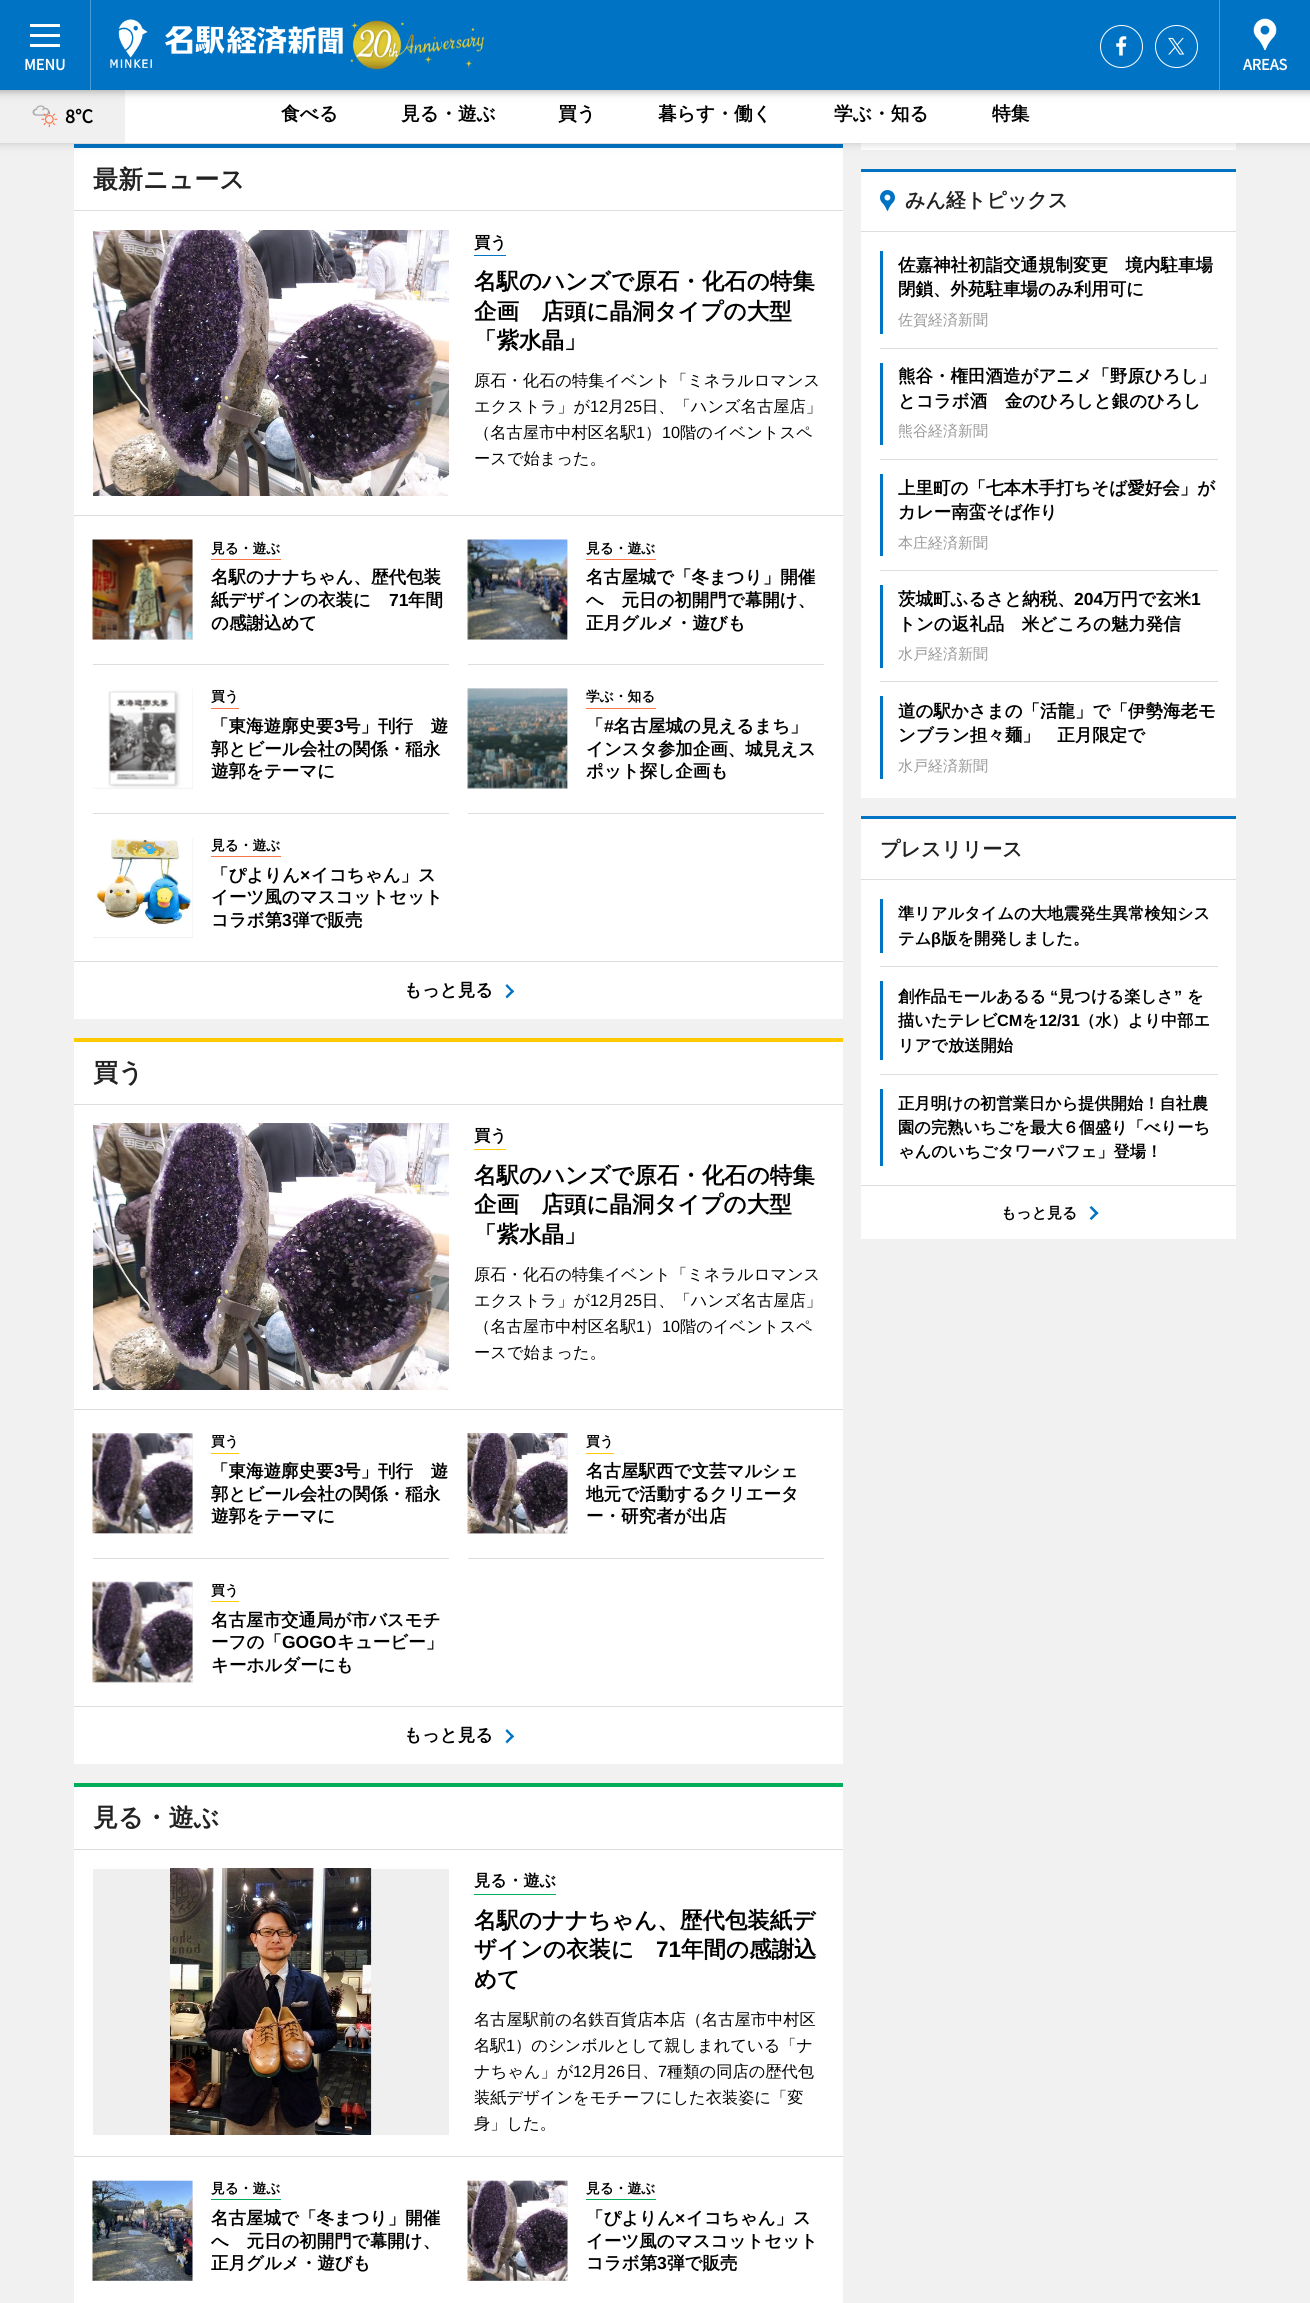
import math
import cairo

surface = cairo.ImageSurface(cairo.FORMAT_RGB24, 1310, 2303)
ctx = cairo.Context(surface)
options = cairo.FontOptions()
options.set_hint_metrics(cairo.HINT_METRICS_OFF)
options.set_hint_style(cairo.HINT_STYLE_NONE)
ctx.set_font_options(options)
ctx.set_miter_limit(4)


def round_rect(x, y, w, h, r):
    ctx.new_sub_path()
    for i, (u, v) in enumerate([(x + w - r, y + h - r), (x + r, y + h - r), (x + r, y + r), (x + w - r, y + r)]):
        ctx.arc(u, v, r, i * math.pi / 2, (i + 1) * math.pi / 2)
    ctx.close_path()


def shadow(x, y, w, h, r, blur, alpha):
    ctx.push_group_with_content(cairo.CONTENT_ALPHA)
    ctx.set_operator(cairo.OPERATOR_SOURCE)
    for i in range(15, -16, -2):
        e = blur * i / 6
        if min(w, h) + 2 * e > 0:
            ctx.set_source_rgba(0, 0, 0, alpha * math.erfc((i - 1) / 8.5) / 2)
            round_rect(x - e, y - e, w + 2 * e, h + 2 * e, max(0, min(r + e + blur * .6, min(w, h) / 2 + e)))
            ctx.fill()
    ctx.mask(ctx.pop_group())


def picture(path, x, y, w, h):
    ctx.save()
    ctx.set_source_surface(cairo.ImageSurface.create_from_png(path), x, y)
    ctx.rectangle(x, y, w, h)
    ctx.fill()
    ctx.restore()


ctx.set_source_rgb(0.945, 0.945, 0.945)
ctx.paint()
ctx.set_source_rgb(1, 1, 1)
ctx.rectangle(74, 148, 769, 871)
ctx.fill()
ctx.set_source_rgb(0, 0.451, 0.769)
ctx.rectangle(74, 144, 769, 4)
ctx.fill()
ctx.set_source_rgb(1, 1, 1)
ctx.rectangle(861, 143, 375, 7)
ctx.fill()
ctx.set_source_rgb(0, 0, 0)
shadow(-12, 65, 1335, 78, 0, 5, 0.2)
ctx.set_source_rgb(1, 1, 1)
ctx.rectangle(125, 90, 1185, 53)
ctx.fill()
ctx.set_source_rgb(0.941, 0.941, 0.941)
ctx.rectangle(0, 90, 125, 53)
ctx.fill()
picture("img6.png", 32, 105, 26, 23)
ctx.set_source_rgb(0, 0, 0)
shadow(-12, -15, 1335, 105, 0, 5, 0.4)
ctx.set_source_rgb(0, 0.451, 0.769)
ctx.rectangle(0, 0, 1310, 90)
ctx.fill()
ctx.set_source_rgb(0.302, 0.616, 0.835)
ctx.rectangle(90, 0, 1, 90)
ctx.fill()
ctx.set_source_rgb(1, 1, 1)
ctx.rectangle(30, 24, 30, 3)
ctx.fill()
ctx.rectangle(30, 44, 30, 3)
ctx.fill()
ctx.rectangle(30, 34, 30, 3)
ctx.fill()
ctx.select_font_face("Source Sans Pro", cairo.FONT_SLANT_NORMAL, cairo.FONT_WEIGHT_BOLD)
ctx.set_font_size(16.25)
ctx.move_to(24, 70)
ctx.show_text("MENU")
picture("img1.png", 110, 19, 233, 49)
picture("img2.png", 350, 20, 134, 50)
picture("img3.png", 1116, 36, 11, 20)
ctx.arc(1121.5, 46.5, 21, 0, 2 * math.pi)
ctx.set_line_width(1)
ctx.stroke()
picture("img4.png", 1168, 37, 17, 18)
ctx.arc(1176.5, 46.5, 21, 0, 2 * math.pi)
ctx.stroke()
ctx.set_source_rgb(0.302, 0.616, 0.835)
ctx.rectangle(1219, 0, 1, 90)
ctx.fill()
picture("img5.png", 1253, 18, 24, 33)
ctx.set_source_rgb(1, 1, 1)
ctx.move_to(1243, 70)
ctx.show_text("AREAS")
ctx.set_font_size(20)
ctx.set_source_rgb(0, 0, 0)
ctx.move_to(65, 123)
ctx.show_text("8°C")
ctx.select_font_face("WenQuanYi Zen Hei", cairo.FONT_SLANT_NORMAL, cairo.FONT_WEIGHT_BOLD)
ctx.set_font_size(18.75)
ctx.move_to(281, 120)
ctx.show_text("食べる")
ctx.move_to(401, 120)
ctx.show_text("見る・遊ぶ")
ctx.move_to(558, 120)
ctx.show_text("買う")
ctx.move_to(658, 120)
ctx.show_text("暮らす・働く")
ctx.move_to(834, 120)
ctx.show_text("学ぶ・知る")
ctx.move_to(992, 120)
ctx.show_text("特集")
ctx.set_font_size(25)
ctx.set_source_rgb(0.133, 0.133, 0.133)
ctx.move_to(93, 188)
ctx.show_text("最新ニュース")
ctx.set_source_rgb(0.867, 0.867, 0.867)
ctx.rectangle(74, 210, 769, 1)
ctx.fill()
picture("img7.png", 93, 230, 356, 266)
ctx.set_source_rgb(0, 0.451, 0.769)
ctx.rectangle(474, 255, 32, 1)
ctx.fill()
ctx.set_font_size(16.25)
ctx.set_source_rgb(0, 0, 0)
ctx.move_to(474, 248)
ctx.show_text("買う")
ctx.set_font_size(22.5)
ctx.move_to(474, 289)
ctx.show_text("名駅のハンズで原石・化石の特集")
ctx.move_to(474, 319)
ctx.show_text("企画　店頭に晶洞タイプの大型")
ctx.move_to(474, 348)
ctx.show_text("「紫水晶」")
ctx.select_font_face("WenQuanYi Zen Hei Medium")
ctx.set_font_size(16.25)
ctx.move_to(474, 386)
ctx.show_text("原石・化石の特集イベント「ミネラルロマンス")
ctx.move_to(474, 412)
ctx.show_text("エクストラ」が")
ctx.select_font_face("Liberation Sans")
ctx.move_to(590, 412)
ctx.show_text("12")
ctx.select_font_face("WenQuanYi Zen Hei Medium")
ctx.move_to(608, 412)
ctx.show_text("月")
ctx.select_font_face("Liberation Sans")
ctx.move_to(624, 412)
ctx.show_text("25")
ctx.select_font_face("WenQuanYi Zen Hei Medium")
ctx.move_to(642, 412)
ctx.show_text("日、「ハンズ名古屋店」")
ctx.move_to(474, 438)
ctx.show_text("（名古屋市中村区名駅")
ctx.select_font_face("Liberation Sans")
ctx.move_to(636, 438)
ctx.show_text("1")
ctx.select_font_face("WenQuanYi Zen Hei Medium")
ctx.move_to(645, 438)
ctx.show_text("）")
ctx.select_font_face("Liberation Sans")
ctx.move_to(662, 438)
ctx.show_text("10")
ctx.select_font_face("WenQuanYi Zen Hei Medium")
ctx.move_to(680, 438)
ctx.show_text("階のイベントスペ")
ctx.move_to(474, 464)
ctx.show_text("ースで始まった。")
ctx.set_source_rgb(0.867, 0.867, 0.867)
ctx.rectangle(74, 515, 769, 1)
ctx.fill()
ctx.set_source_rgb(0.937, 0.937, 0.937)
ctx.rectangle(93, 540, 100, 100)
ctx.fill()
picture("img8.png", 92, 539, 101, 101)
ctx.set_source_rgb(1, 0.459, 0.29)
ctx.rectangle(211, 559, 70, 1)
ctx.fill()
ctx.select_font_face("WenQuanYi Zen Hei", cairo.FONT_SLANT_NORMAL, cairo.FONT_WEIGHT_BOLD)
ctx.set_font_size(13.75)
ctx.set_source_rgb(0, 0, 0)
ctx.move_to(211, 553)
ctx.show_text("見る・遊ぶ")
ctx.set_font_size(17.5)
ctx.move_to(211, 583)
ctx.show_text("名駅のナナちゃん、歴代包装")
ctx.move_to(211, 606)
ctx.show_text("紙デザインの衣装に")
ctx.select_font_face("Liberation Sans", cairo.FONT_SLANT_NORMAL, cairo.FONT_WEIGHT_BOLD)
ctx.move_to(389, 606)
ctx.show_text("71")
ctx.select_font_face("WenQuanYi Zen Hei", cairo.FONT_SLANT_NORMAL, cairo.FONT_WEIGHT_BOLD)
ctx.move_to(408, 606)
ctx.show_text("年間")
ctx.move_to(211, 629)
ctx.show_text("の感謝込めて")
ctx.set_source_rgb(0.937, 0.937, 0.937)
ctx.rectangle(468, 540, 100, 100)
ctx.fill()
picture("img9.png", 467, 539, 101, 101)
ctx.set_source_rgb(1, 0.459, 0.29)
ctx.rectangle(586, 559, 70, 1)
ctx.fill()
ctx.set_font_size(13.75)
ctx.set_source_rgb(0, 0, 0)
ctx.move_to(586, 553)
ctx.show_text("見る・遊ぶ")
ctx.set_font_size(17.5)
ctx.move_to(586, 583)
ctx.show_text("名古屋城で「冬まつり」開催")
ctx.move_to(586, 606)
ctx.show_text("へ　元日の初開門で幕開け、")
ctx.move_to(586, 629)
ctx.show_text("正月グルメ・遊びも")
ctx.set_source_rgb(0.867, 0.867, 0.867)
ctx.rectangle(93, 664, 356, 1)
ctx.fill()
ctx.set_source_rgb(0.937, 0.937, 0.937)
ctx.rectangle(93, 689, 100, 100)
ctx.fill()
picture("img10.png", 93, 689, 100, 100)
ctx.set_source_rgb(1, 0.459, 0.29)
ctx.rectangle(211, 708, 28, 1)
ctx.fill()
ctx.set_font_size(13.75)
ctx.set_source_rgb(0, 0, 0)
ctx.move_to(211, 701)
ctx.show_text("買う")
ctx.set_font_size(17.5)
ctx.move_to(211, 732)
ctx.show_text("「東海遊廓史要")
ctx.select_font_face("Liberation Sans", cairo.FONT_SLANT_NORMAL, cairo.FONT_WEIGHT_BOLD)
ctx.move_to(334, 732)
ctx.show_text("3")
ctx.select_font_face("WenQuanYi Zen Hei", cairo.FONT_SLANT_NORMAL, cairo.FONT_WEIGHT_BOLD)
ctx.move_to(343, 732)
ctx.show_text("号」刊行　遊")
ctx.move_to(211, 755)
ctx.show_text("郭とビール会社の関係・稲永")
ctx.move_to(211, 777)
ctx.show_text("遊郭をテーマに")
ctx.set_source_rgb(0.867, 0.867, 0.867)
ctx.rectangle(468, 664, 356, 1)
ctx.fill()
ctx.set_source_rgb(0.937, 0.937, 0.937)
ctx.rectangle(468, 689, 100, 100)
ctx.fill()
picture("img11.png", 467, 688, 101, 101)
ctx.set_source_rgb(1, 0.459, 0.29)
ctx.rectangle(586, 708, 70, 1)
ctx.fill()
ctx.set_font_size(13.75)
ctx.set_source_rgb(0, 0, 0)
ctx.move_to(586, 701)
ctx.show_text("学ぶ・知る")
ctx.set_font_size(17.5)
ctx.move_to(586, 732)
ctx.show_text("「")
ctx.select_font_face("Liberation Sans", cairo.FONT_SLANT_NORMAL, cairo.FONT_WEIGHT_BOLD)
ctx.move_to(604, 732)
ctx.show_text("#")
ctx.select_font_face("WenQuanYi Zen Hei", cairo.FONT_SLANT_NORMAL, cairo.FONT_WEIGHT_BOLD)
ctx.move_to(613, 732)
ctx.show_text("名古屋城の見えるまち」")
ctx.move_to(586, 755)
ctx.show_text("インスタ参加企画、城見えス")
ctx.move_to(586, 777)
ctx.show_text("ポット探し企画も")
ctx.set_source_rgb(0.867, 0.867, 0.867)
ctx.rectangle(468, 813, 356, 1)
ctx.fill()
ctx.rectangle(93, 813, 356, 1)
ctx.fill()
ctx.set_source_rgb(0.937, 0.937, 0.937)
ctx.rectangle(93, 838, 100, 100)
ctx.fill()
picture("img12.png", 93, 838, 100, 99)
ctx.set_source_rgb(1, 0.459, 0.29)
ctx.rectangle(211, 856, 70, 1)
ctx.fill()
ctx.set_font_size(13.75)
ctx.set_source_rgb(0, 0, 0)
ctx.move_to(211, 850)
ctx.show_text("見る・遊ぶ")
ctx.set_font_size(17.5)
ctx.move_to(211, 881)
ctx.show_text("「ぴよりん")
ctx.select_font_face("Liberation Sans", cairo.FONT_SLANT_NORMAL, cairo.FONT_WEIGHT_BOLD)
ctx.move_to(300, 881)
ctx.show_text("×")
ctx.select_font_face("WenQuanYi Zen Hei", cairo.FONT_SLANT_NORMAL, cairo.FONT_WEIGHT_BOLD)
ctx.move_to(311, 881)
ctx.show_text("イコちゃん」ス")
ctx.move_to(211, 903)
ctx.show_text("イーツ風のマスコットセット")
ctx.move_to(211, 926)
ctx.show_text("コラボ第")
ctx.select_font_face("Liberation Sans", cairo.FONT_SLANT_NORMAL, cairo.FONT_WEIGHT_BOLD)
ctx.move_to(282, 926)
ctx.show_text("3")
ctx.select_font_face("WenQuanYi Zen Hei", cairo.FONT_SLANT_NORMAL, cairo.FONT_WEIGHT_BOLD)
ctx.move_to(292, 926)
ctx.show_text("弾で販売")
ctx.set_source_rgb(0.867, 0.867, 0.867)
ctx.rectangle(74, 961, 769, 1)
ctx.fill()
ctx.set_source_rgb(0, 0, 0)
ctx.move_to(404, 996)
ctx.show_text("もっと見る")
ctx.set_source_rgb(0, 0.451, 0.769)
ctx.new_path()
ctx.move_to(507, 984)
ctx.line_to(514, 991.5)
ctx.line_to(512.5, 993)
ctx.line_to(505.5, 986)
ctx.close_path()
ctx.fill()
ctx.new_path()
ctx.move_to(512.5, 989.5)
ctx.line_to(514, 991.5)
ctx.line_to(507, 998.5)
ctx.line_to(505.5, 996.5)
ctx.close_path()
ctx.fill()
ctx.set_source_rgb(1, 1, 1)
ctx.rectangle(74, 1042, 769, 722)
ctx.fill()
ctx.set_source_rgb(1, 0.792, 0)
ctx.rectangle(74, 1038, 769, 4)
ctx.fill()
ctx.set_font_size(25)
ctx.set_source_rgb(0.133, 0.133, 0.133)
ctx.move_to(93, 1081)
ctx.show_text("買う")
ctx.set_source_rgb(0.867, 0.867, 0.867)
ctx.rectangle(74, 1104, 769, 1)
ctx.fill()
picture("img13.png", 93, 1123, 356, 267)
ctx.set_source_rgb(1, 0.792, 0)
ctx.rectangle(474, 1149, 32, 1)
ctx.fill()
ctx.set_font_size(16.25)
ctx.set_source_rgb(0, 0, 0)
ctx.move_to(474, 1141)
ctx.show_text("買う")
ctx.set_font_size(22.5)
ctx.move_to(474, 1183)
ctx.show_text("名駅のハンズで原石・化石の特集")
ctx.move_to(474, 1212)
ctx.show_text("企画　店頭に晶洞タイプの大型")
ctx.move_to(474, 1242)
ctx.show_text("「紫水晶」")
ctx.select_font_face("WenQuanYi Zen Hei Medium")
ctx.set_font_size(16.25)
ctx.move_to(474, 1280)
ctx.show_text("原石・化石の特集イベント「ミネラルロマンス")
ctx.move_to(474, 1306)
ctx.show_text("エクストラ」が")
ctx.select_font_face("Liberation Sans")
ctx.move_to(590, 1306)
ctx.show_text("12")
ctx.select_font_face("WenQuanYi Zen Hei Medium")
ctx.move_to(608, 1306)
ctx.show_text("月")
ctx.select_font_face("Liberation Sans")
ctx.move_to(624, 1306)
ctx.show_text("25")
ctx.select_font_face("WenQuanYi Zen Hei Medium")
ctx.move_to(642, 1306)
ctx.show_text("日、「ハンズ名古屋店」")
ctx.move_to(474, 1332)
ctx.show_text("（名古屋市中村区名駅")
ctx.select_font_face("Liberation Sans")
ctx.move_to(636, 1332)
ctx.show_text("1")
ctx.select_font_face("WenQuanYi Zen Hei Medium")
ctx.move_to(645, 1332)
ctx.show_text("）")
ctx.select_font_face("Liberation Sans")
ctx.move_to(662, 1332)
ctx.show_text("10")
ctx.select_font_face("WenQuanYi Zen Hei Medium")
ctx.move_to(680, 1332)
ctx.show_text("階のイベントスペ")
ctx.move_to(474, 1358)
ctx.show_text("ースで始まった。")
ctx.set_source_rgb(0.867, 0.867, 0.867)
ctx.rectangle(74, 1409, 769, 1)
ctx.fill()
ctx.set_source_rgb(0.937, 0.937, 0.937)
ctx.rectangle(93, 1434, 100, 100)
ctx.fill()
picture("img14.png", 92, 1433, 101, 101)
ctx.set_source_rgb(1, 0.792, 0)
ctx.rectangle(211, 1453, 28, 1)
ctx.fill()
ctx.select_font_face("WenQuanYi Zen Hei", cairo.FONT_SLANT_NORMAL, cairo.FONT_WEIGHT_BOLD)
ctx.set_font_size(13.75)
ctx.set_source_rgb(0, 0, 0)
ctx.move_to(211, 1446)
ctx.show_text("買う")
ctx.set_font_size(17.5)
ctx.move_to(211, 1477)
ctx.show_text("「東海遊廓史要")
ctx.select_font_face("Liberation Sans", cairo.FONT_SLANT_NORMAL, cairo.FONT_WEIGHT_BOLD)
ctx.move_to(334, 1477)
ctx.show_text("3")
ctx.select_font_face("WenQuanYi Zen Hei", cairo.FONT_SLANT_NORMAL, cairo.FONT_WEIGHT_BOLD)
ctx.move_to(343, 1477)
ctx.show_text("号」刊行　遊")
ctx.move_to(211, 1500)
ctx.show_text("郭とビール会社の関係・稲永")
ctx.move_to(211, 1522)
ctx.show_text("遊郭をテーマに")
ctx.set_source_rgb(0.937, 0.937, 0.937)
ctx.rectangle(468, 1434, 100, 100)
ctx.fill()
picture("img15.png", 467, 1433, 101, 101)
ctx.set_source_rgb(1, 0.792, 0)
ctx.rectangle(586, 1453, 28, 1)
ctx.fill()
ctx.set_font_size(13.75)
ctx.set_source_rgb(0, 0, 0)
ctx.move_to(586, 1446)
ctx.show_text("買う")
ctx.set_font_size(17.5)
ctx.move_to(586, 1477)
ctx.show_text("名古屋駅西で文芸マルシェ")
ctx.move_to(586, 1500)
ctx.show_text("地元で活動するクリエータ")
ctx.move_to(586, 1522)
ctx.show_text("ー・研究者が出店")
ctx.set_source_rgb(0.867, 0.867, 0.867)
ctx.rectangle(468, 1558, 356, 1)
ctx.fill()
ctx.rectangle(93, 1558, 356, 1)
ctx.fill()
ctx.set_source_rgb(0.937, 0.937, 0.937)
ctx.rectangle(93, 1583, 100, 100)
ctx.fill()
picture("img16.png", 92, 1581, 101, 102)
ctx.set_source_rgb(1, 0.792, 0)
ctx.rectangle(211, 1601, 28, 1)
ctx.fill()
ctx.set_font_size(13.75)
ctx.set_source_rgb(0, 0, 0)
ctx.move_to(211, 1595)
ctx.show_text("買う")
ctx.set_font_size(17.5)
ctx.move_to(211, 1626)
ctx.show_text("名古屋市交通局が市バスモチ")
ctx.move_to(211, 1648)
ctx.show_text("ーフの「")
ctx.select_font_face("Liberation Sans", cairo.FONT_SLANT_NORMAL, cairo.FONT_WEIGHT_BOLD)
ctx.move_to(282, 1648)
ctx.show_text("GOGO")
ctx.select_font_face("WenQuanYi Zen Hei", cairo.FONT_SLANT_NORMAL, cairo.FONT_WEIGHT_BOLD)
ctx.move_to(337, 1648)
ctx.show_text("キュービー」")
ctx.move_to(211, 1671)
ctx.show_text("キーホルダーにも")
ctx.set_source_rgb(0.867, 0.867, 0.867)
ctx.rectangle(74, 1706, 769, 1)
ctx.fill()
ctx.set_source_rgb(0, 0, 0)
ctx.move_to(404, 1741)
ctx.show_text("もっと見る")
ctx.set_source_rgb(0, 0.451, 0.769)
ctx.new_path()
ctx.move_to(507, 1729)
ctx.line_to(514, 1736.5)
ctx.line_to(512.5, 1738)
ctx.line_to(505.5, 1731)
ctx.close_path()
ctx.fill()
ctx.new_path()
ctx.move_to(512.5, 1734.5)
ctx.line_to(514, 1736.5)
ctx.line_to(507, 1743.5)
ctx.line_to(505.5, 1741.5)
ctx.close_path()
ctx.fill()
ctx.set_source_rgb(1, 1, 1)
ctx.rectangle(74, 1787, 769, 516)
ctx.fill()
ctx.set_source_rgb(0, 0.678, 0.353)
ctx.rectangle(74, 1783, 769, 4)
ctx.fill()
ctx.set_font_size(25)
ctx.set_source_rgb(0.133, 0.133, 0.133)
ctx.move_to(93, 1826)
ctx.show_text("見る・遊ぶ")
ctx.set_source_rgb(0.867, 0.867, 0.867)
ctx.rectangle(74, 1849, 769, 1)
ctx.fill()
ctx.set_source_rgb(0.937, 0.937, 0.937)
ctx.rectangle(93, 1869, 356, 266)
ctx.fill()
picture("img17.png", 170, 1868, 202, 267)
ctx.set_source_rgb(0, 0.678, 0.353)
ctx.rectangle(474, 1894, 82, 1)
ctx.fill()
ctx.set_font_size(16.25)
ctx.set_source_rgb(0, 0, 0)
ctx.move_to(474, 1886)
ctx.show_text("見る・遊ぶ")
ctx.set_font_size(22.5)
ctx.move_to(474, 1928)
ctx.show_text("名駅のナナちゃん、歴代包装紙デ")
ctx.move_to(474, 1957)
ctx.show_text("ザインの衣装に")
ctx.select_font_face("Liberation Sans", cairo.FONT_SLANT_NORMAL, cairo.FONT_WEIGHT_BOLD)
ctx.move_to(656, 1957)
ctx.show_text("71")
ctx.select_font_face("WenQuanYi Zen Hei", cairo.FONT_SLANT_NORMAL, cairo.FONT_WEIGHT_BOLD)
ctx.move_to(681, 1957)
ctx.show_text("年間の感謝込")
ctx.move_to(474, 1987)
ctx.show_text("めて")
ctx.select_font_face("WenQuanYi Zen Hei Medium")
ctx.set_font_size(16.25)
ctx.move_to(474, 2025)
ctx.show_text("名古屋駅前の名鉄百貨店本店（名古屋市中村区")
ctx.move_to(474, 2051)
ctx.show_text("名駅")
ctx.select_font_face("Liberation Sans")
ctx.move_to(506, 2051)
ctx.show_text("1")
ctx.select_font_face("WenQuanYi Zen Hei Medium")
ctx.move_to(515, 2051)
ctx.show_text("）のシンボルとして親しまれている「ナ")
ctx.move_to(474, 2077)
ctx.show_text("ナちゃん」が")
ctx.select_font_face("Liberation Sans")
ctx.move_to(573, 2077)
ctx.show_text("12")
ctx.select_font_face("WenQuanYi Zen Hei Medium")
ctx.move_to(591, 2077)
ctx.show_text("月")
ctx.select_font_face("Liberation Sans")
ctx.move_to(607, 2077)
ctx.show_text("26")
ctx.select_font_face("WenQuanYi Zen Hei Medium")
ctx.move_to(626, 2077)
ctx.show_text("日、")
ctx.select_font_face("Liberation Sans")
ctx.move_to(658, 2077)
ctx.show_text("7")
ctx.select_font_face("WenQuanYi Zen Hei Medium")
ctx.move_to(667, 2077)
ctx.show_text("種類の同店の歴代包")
ctx.move_to(474, 2103)
ctx.show_text("装紙デザインをモチーフにした衣装姿に「変")
ctx.move_to(474, 2129)
ctx.show_text("身」した。")
ctx.set_source_rgb(0.867, 0.867, 0.867)
ctx.rectangle(74, 2156, 769, 1)
ctx.fill()
ctx.set_source_rgb(0.937, 0.937, 0.937)
ctx.rectangle(93, 2181, 100, 100)
ctx.fill()
picture("img18.png", 92, 2180, 101, 101)
ctx.set_source_rgb(0, 0.678, 0.353)
ctx.rectangle(211, 2199, 70, 1)
ctx.fill()
ctx.select_font_face("WenQuanYi Zen Hei", cairo.FONT_SLANT_NORMAL, cairo.FONT_WEIGHT_BOLD)
ctx.set_font_size(13.75)
ctx.set_source_rgb(0, 0, 0)
ctx.move_to(211, 2193)
ctx.show_text("見る・遊ぶ")
ctx.set_font_size(17.5)
ctx.move_to(211, 2224)
ctx.show_text("名古屋城で「冬まつり」開催")
ctx.move_to(211, 2247)
ctx.show_text("へ　元日の初開門で幕開け、")
ctx.move_to(211, 2269)
ctx.show_text("正月グルメ・遊びも")
ctx.set_source_rgb(0.937, 0.937, 0.937)
ctx.rectangle(468, 2181, 100, 100)
ctx.fill()
picture("img19.png", 467, 2180, 101, 101)
ctx.set_source_rgb(0, 0.678, 0.353)
ctx.rectangle(586, 2199, 70, 1)
ctx.fill()
ctx.set_font_size(13.75)
ctx.set_source_rgb(0, 0, 0)
ctx.move_to(586, 2193)
ctx.show_text("見る・遊ぶ")
ctx.set_font_size(17.5)
ctx.move_to(586, 2224)
ctx.show_text("「ぴよりん")
ctx.select_font_face("Liberation Sans", cairo.FONT_SLANT_NORMAL, cairo.FONT_WEIGHT_BOLD)
ctx.move_to(675, 2224)
ctx.show_text("×")
ctx.select_font_face("WenQuanYi Zen Hei", cairo.FONT_SLANT_NORMAL, cairo.FONT_WEIGHT_BOLD)
ctx.move_to(686, 2224)
ctx.show_text("イコちゃん」ス")
ctx.move_to(586, 2247)
ctx.show_text("イーツ風のマスコットセット")
ctx.move_to(586, 2269)
ctx.show_text("コラボ第")
ctx.select_font_face("Liberation Sans", cairo.FONT_SLANT_NORMAL, cairo.FONT_WEIGHT_BOLD)
ctx.move_to(657, 2269)
ctx.show_text("3")
ctx.select_font_face("WenQuanYi Zen Hei", cairo.FONT_SLANT_NORMAL, cairo.FONT_WEIGHT_BOLD)
ctx.move_to(667, 2269)
ctx.show_text("弾で販売")
ctx.set_source_rgb(1, 1, 1)
ctx.rectangle(861, 172, 375, 626)
ctx.fill()
ctx.set_source_rgb(0, 0.451, 0.769)
ctx.rectangle(861, 169, 375, 3)
ctx.fill()
ctx.set_source_rgb(0.867, 0.867, 0.867)
ctx.rectangle(861, 231, 375, 1)
ctx.fill()
picture("img20.png", 880, 190, 15, 21)
ctx.set_font_size(20)
ctx.set_source_rgb(0.133, 0.133, 0.133)
ctx.move_to(905, 207)
ctx.show_text("みん経トピックス")
ctx.set_source_rgb(0, 0.451, 0.769)
ctx.rectangle(880, 251, 3, 83)
ctx.fill()
ctx.set_font_size(17.5)
ctx.set_source_rgb(0, 0, 0)
ctx.move_to(898, 271)
ctx.show_text("佐嘉神社初詣交通規制変更　境内駐車場")
ctx.move_to(898, 295)
ctx.show_text("閉鎖、外苑駐車場のみ利用可に")
ctx.select_font_face("WenQuanYi Zen Hei Medium")
ctx.set_font_size(15)
ctx.set_source_rgb(0.6, 0.6, 0.6)
ctx.move_to(898, 325)
ctx.show_text("佐賀経済新聞")
ctx.set_source_rgb(0.867, 0.867, 0.867)
ctx.rectangle(880, 348, 338, 1)
ctx.fill()
ctx.set_source_rgb(0, 0.451, 0.769)
ctx.rectangle(880, 363, 3, 82)
ctx.fill()
ctx.select_font_face("WenQuanYi Zen Hei", cairo.FONT_SLANT_NORMAL, cairo.FONT_WEIGHT_BOLD)
ctx.set_font_size(17.5)
ctx.set_source_rgb(0, 0, 0)
ctx.move_to(898, 382)
ctx.show_text("熊谷・権田酒造がアニメ「野原ひろし」")
ctx.move_to(898, 407)
ctx.show_text("とコラボ酒　金のひろしと銀のひろし")
ctx.select_font_face("WenQuanYi Zen Hei Medium")
ctx.set_font_size(15)
ctx.set_source_rgb(0.6, 0.6, 0.6)
ctx.move_to(898, 436)
ctx.show_text("熊谷経済新聞")
ctx.set_source_rgb(0.867, 0.867, 0.867)
ctx.rectangle(880, 459, 338, 1)
ctx.fill()
ctx.set_source_rgb(0, 0.451, 0.769)
ctx.rectangle(880, 474, 3, 82)
ctx.fill()
ctx.select_font_face("WenQuanYi Zen Hei", cairo.FONT_SLANT_NORMAL, cairo.FONT_WEIGHT_BOLD)
ctx.set_font_size(17.5)
ctx.set_source_rgb(0, 0, 0)
ctx.move_to(898, 494)
ctx.show_text("上里町の「七本木手打ちそば愛好会」が")
ctx.move_to(898, 518)
ctx.show_text("カレー南蛮そば作り")
ctx.select_font_face("WenQuanYi Zen Hei Medium")
ctx.set_font_size(15)
ctx.set_source_rgb(0.6, 0.6, 0.6)
ctx.move_to(898, 548)
ctx.show_text("本庄経済新聞")
ctx.set_source_rgb(0.867, 0.867, 0.867)
ctx.rectangle(880, 570, 338, 1)
ctx.fill()
ctx.set_source_rgb(0, 0.451, 0.769)
ctx.rectangle(880, 585, 3, 83)
ctx.fill()
ctx.select_font_face("WenQuanYi Zen Hei", cairo.FONT_SLANT_NORMAL, cairo.FONT_WEIGHT_BOLD)
ctx.set_font_size(17.5)
ctx.set_source_rgb(0, 0, 0)
ctx.move_to(898, 605)
ctx.show_text("茨城町ふるさと納税、")
ctx.select_font_face("Liberation Sans", cairo.FONT_SLANT_NORMAL, cairo.FONT_WEIGHT_BOLD)
ctx.move_to(1074, 605)
ctx.show_text("204")
ctx.select_font_face("WenQuanYi Zen Hei", cairo.FONT_SLANT_NORMAL, cairo.FONT_WEIGHT_BOLD)
ctx.move_to(1103, 605)
ctx.show_text("万円で玄米")
ctx.select_font_face("Liberation Sans", cairo.FONT_SLANT_NORMAL, cairo.FONT_WEIGHT_BOLD)
ctx.move_to(1191, 605)
ctx.show_text("1")
ctx.select_font_face("WenQuanYi Zen Hei", cairo.FONT_SLANT_NORMAL, cairo.FONT_WEIGHT_BOLD)
ctx.move_to(898, 630)
ctx.show_text("トンの返礼品　米どころの魅力発信")
ctx.select_font_face("WenQuanYi Zen Hei Medium")
ctx.set_font_size(15)
ctx.set_source_rgb(0.6, 0.6, 0.6)
ctx.move_to(898, 659)
ctx.show_text("水戸経済新聞")
ctx.set_source_rgb(0.867, 0.867, 0.867)
ctx.rectangle(880, 681, 338, 1)
ctx.fill()
ctx.set_source_rgb(0, 0.451, 0.769)
ctx.rectangle(880, 696, 3, 83)
ctx.fill()
ctx.select_font_face("WenQuanYi Zen Hei", cairo.FONT_SLANT_NORMAL, cairo.FONT_WEIGHT_BOLD)
ctx.set_font_size(17.5)
ctx.set_source_rgb(0, 0, 0)
ctx.move_to(898, 717)
ctx.show_text("道の駅かさまの「活龍」で「伊勢海老モ")
ctx.move_to(898, 741)
ctx.show_text("ンブラン担々麺」　正月限定で")
ctx.select_font_face("WenQuanYi Zen Hei Medium")
ctx.set_font_size(15)
ctx.set_source_rgb(0.6, 0.6, 0.6)
ctx.move_to(898, 771)
ctx.show_text("水戸経済新聞")
ctx.set_source_rgb(1, 1, 1)
ctx.rectangle(861, 819, 375, 420)
ctx.fill()
ctx.set_source_rgb(0, 0.451, 0.769)
ctx.rectangle(861, 816, 375, 3)
ctx.fill()
ctx.set_source_rgb(0.867, 0.867, 0.867)
ctx.rectangle(861, 879, 375, 1)
ctx.fill()
ctx.select_font_face("WenQuanYi Zen Hei", cairo.FONT_SLANT_NORMAL, cairo.FONT_WEIGHT_BOLD)
ctx.set_font_size(20)
ctx.set_source_rgb(0.133, 0.133, 0.133)
ctx.move_to(880, 856)
ctx.show_text("プレスリリース")
ctx.set_source_rgb(0, 0.451, 0.769)
ctx.rectangle(880, 899, 3, 54)
ctx.fill()
ctx.set_font_size(16.25)
ctx.set_source_rgb(0, 0, 0)
ctx.move_to(898, 919)
ctx.show_text("準リアルタイムの大地震発生異常検知シス")
ctx.move_to(898, 944)
ctx.show_text("テム")
ctx.select_font_face("Liberation Sans", cairo.FONT_SLANT_NORMAL, cairo.FONT_WEIGHT_BOLD)
ctx.move_to(931, 944)
ctx.show_text("β")
ctx.select_font_face("WenQuanYi Zen Hei", cairo.FONT_SLANT_NORMAL, cairo.FONT_WEIGHT_BOLD)
ctx.move_to(941, 944)
ctx.show_text("版を開発しました。")
ctx.set_source_rgb(0.867, 0.867, 0.867)
ctx.rectangle(880, 966, 338, 1)
ctx.fill()
ctx.set_source_rgb(0, 0.451, 0.769)
ctx.rectangle(880, 981, 3, 79)
ctx.fill()
ctx.set_source_rgb(0, 0, 0)
ctx.move_to(898, 1002)
ctx.show_text("創作品モールあるる")
ctx.select_font_face("Liberation Sans", cairo.FONT_SLANT_NORMAL, cairo.FONT_WEIGHT_BOLD)
ctx.move_to(1050, 1002)
ctx.show_text("“")
ctx.select_font_face("WenQuanYi Zen Hei", cairo.FONT_SLANT_NORMAL, cairo.FONT_WEIGHT_BOLD)
ctx.move_to(1058, 1002)
ctx.show_text("見つける楽しさ")
ctx.select_font_face("Liberation Sans", cairo.FONT_SLANT_NORMAL, cairo.FONT_WEIGHT_BOLD)
ctx.move_to(1174, 1002)
ctx.show_text("”")
ctx.select_font_face("WenQuanYi Zen Hei", cairo.FONT_SLANT_NORMAL, cairo.FONT_WEIGHT_BOLD)
ctx.move_to(1187, 1002)
ctx.show_text("を")
ctx.move_to(898, 1026)
ctx.show_text("描いたテレビ")
ctx.select_font_face("Liberation Sans", cairo.FONT_SLANT_NORMAL, cairo.FONT_WEIGHT_BOLD)
ctx.move_to(997, 1026)
ctx.show_text("CM")
ctx.select_font_face("WenQuanYi Zen Hei", cairo.FONT_SLANT_NORMAL, cairo.FONT_WEIGHT_BOLD)
ctx.move_to(1022, 1026)
ctx.show_text("を")
ctx.select_font_face("Liberation Sans", cairo.FONT_SLANT_NORMAL, cairo.FONT_WEIGHT_BOLD)
ctx.move_to(1039, 1026)
ctx.show_text("12/31")
ctx.select_font_face("WenQuanYi Zen Hei", cairo.FONT_SLANT_NORMAL, cairo.FONT_WEIGHT_BOLD)
ctx.move_to(1079, 1026)
ctx.show_text("（水）より中部エ")
ctx.move_to(898, 1051)
ctx.show_text("リアで放送開始")
ctx.set_source_rgb(0.867, 0.867, 0.867)
ctx.rectangle(880, 1074, 338, 1)
ctx.fill()
ctx.set_source_rgb(0, 0.451, 0.769)
ctx.rectangle(880, 1089, 3, 77)
ctx.fill()
ctx.set_source_rgb(0, 0, 0)
ctx.move_to(898, 1109)
ctx.show_text("正月明けの初営業日から提供開始！自社農")
ctx.move_to(898, 1133)
ctx.show_text("園の完熟いちごを最大６個盛り「べりーち")
ctx.move_to(898, 1157)
ctx.show_text("ゃんのいちごタワーパフェ」登場！")
ctx.set_source_rgb(0.867, 0.867, 0.867)
ctx.rectangle(861, 1185, 375, 1)
ctx.fill()
ctx.set_font_size(15)
ctx.set_source_rgb(0, 0, 0)
ctx.move_to(1001, 1218)
ctx.show_text("もっと見る")
ctx.set_source_rgb(0, 0.451, 0.769)
ctx.new_path()
ctx.move_to(1091.5, 1206)
ctx.line_to(1098.5, 1213)
ctx.line_to(1096.5, 1215)
ctx.line_to(1089.5, 1207.5)
ctx.close_path()
ctx.fill()
ctx.new_path()
ctx.move_to(1096.5, 1211.5)
ctx.line_to(1098.5, 1213)
ctx.line_to(1091.5, 1220)
ctx.line_to(1089.5, 1218.5)
ctx.close_path()
ctx.fill()
surface.write_to_png("page.png")
